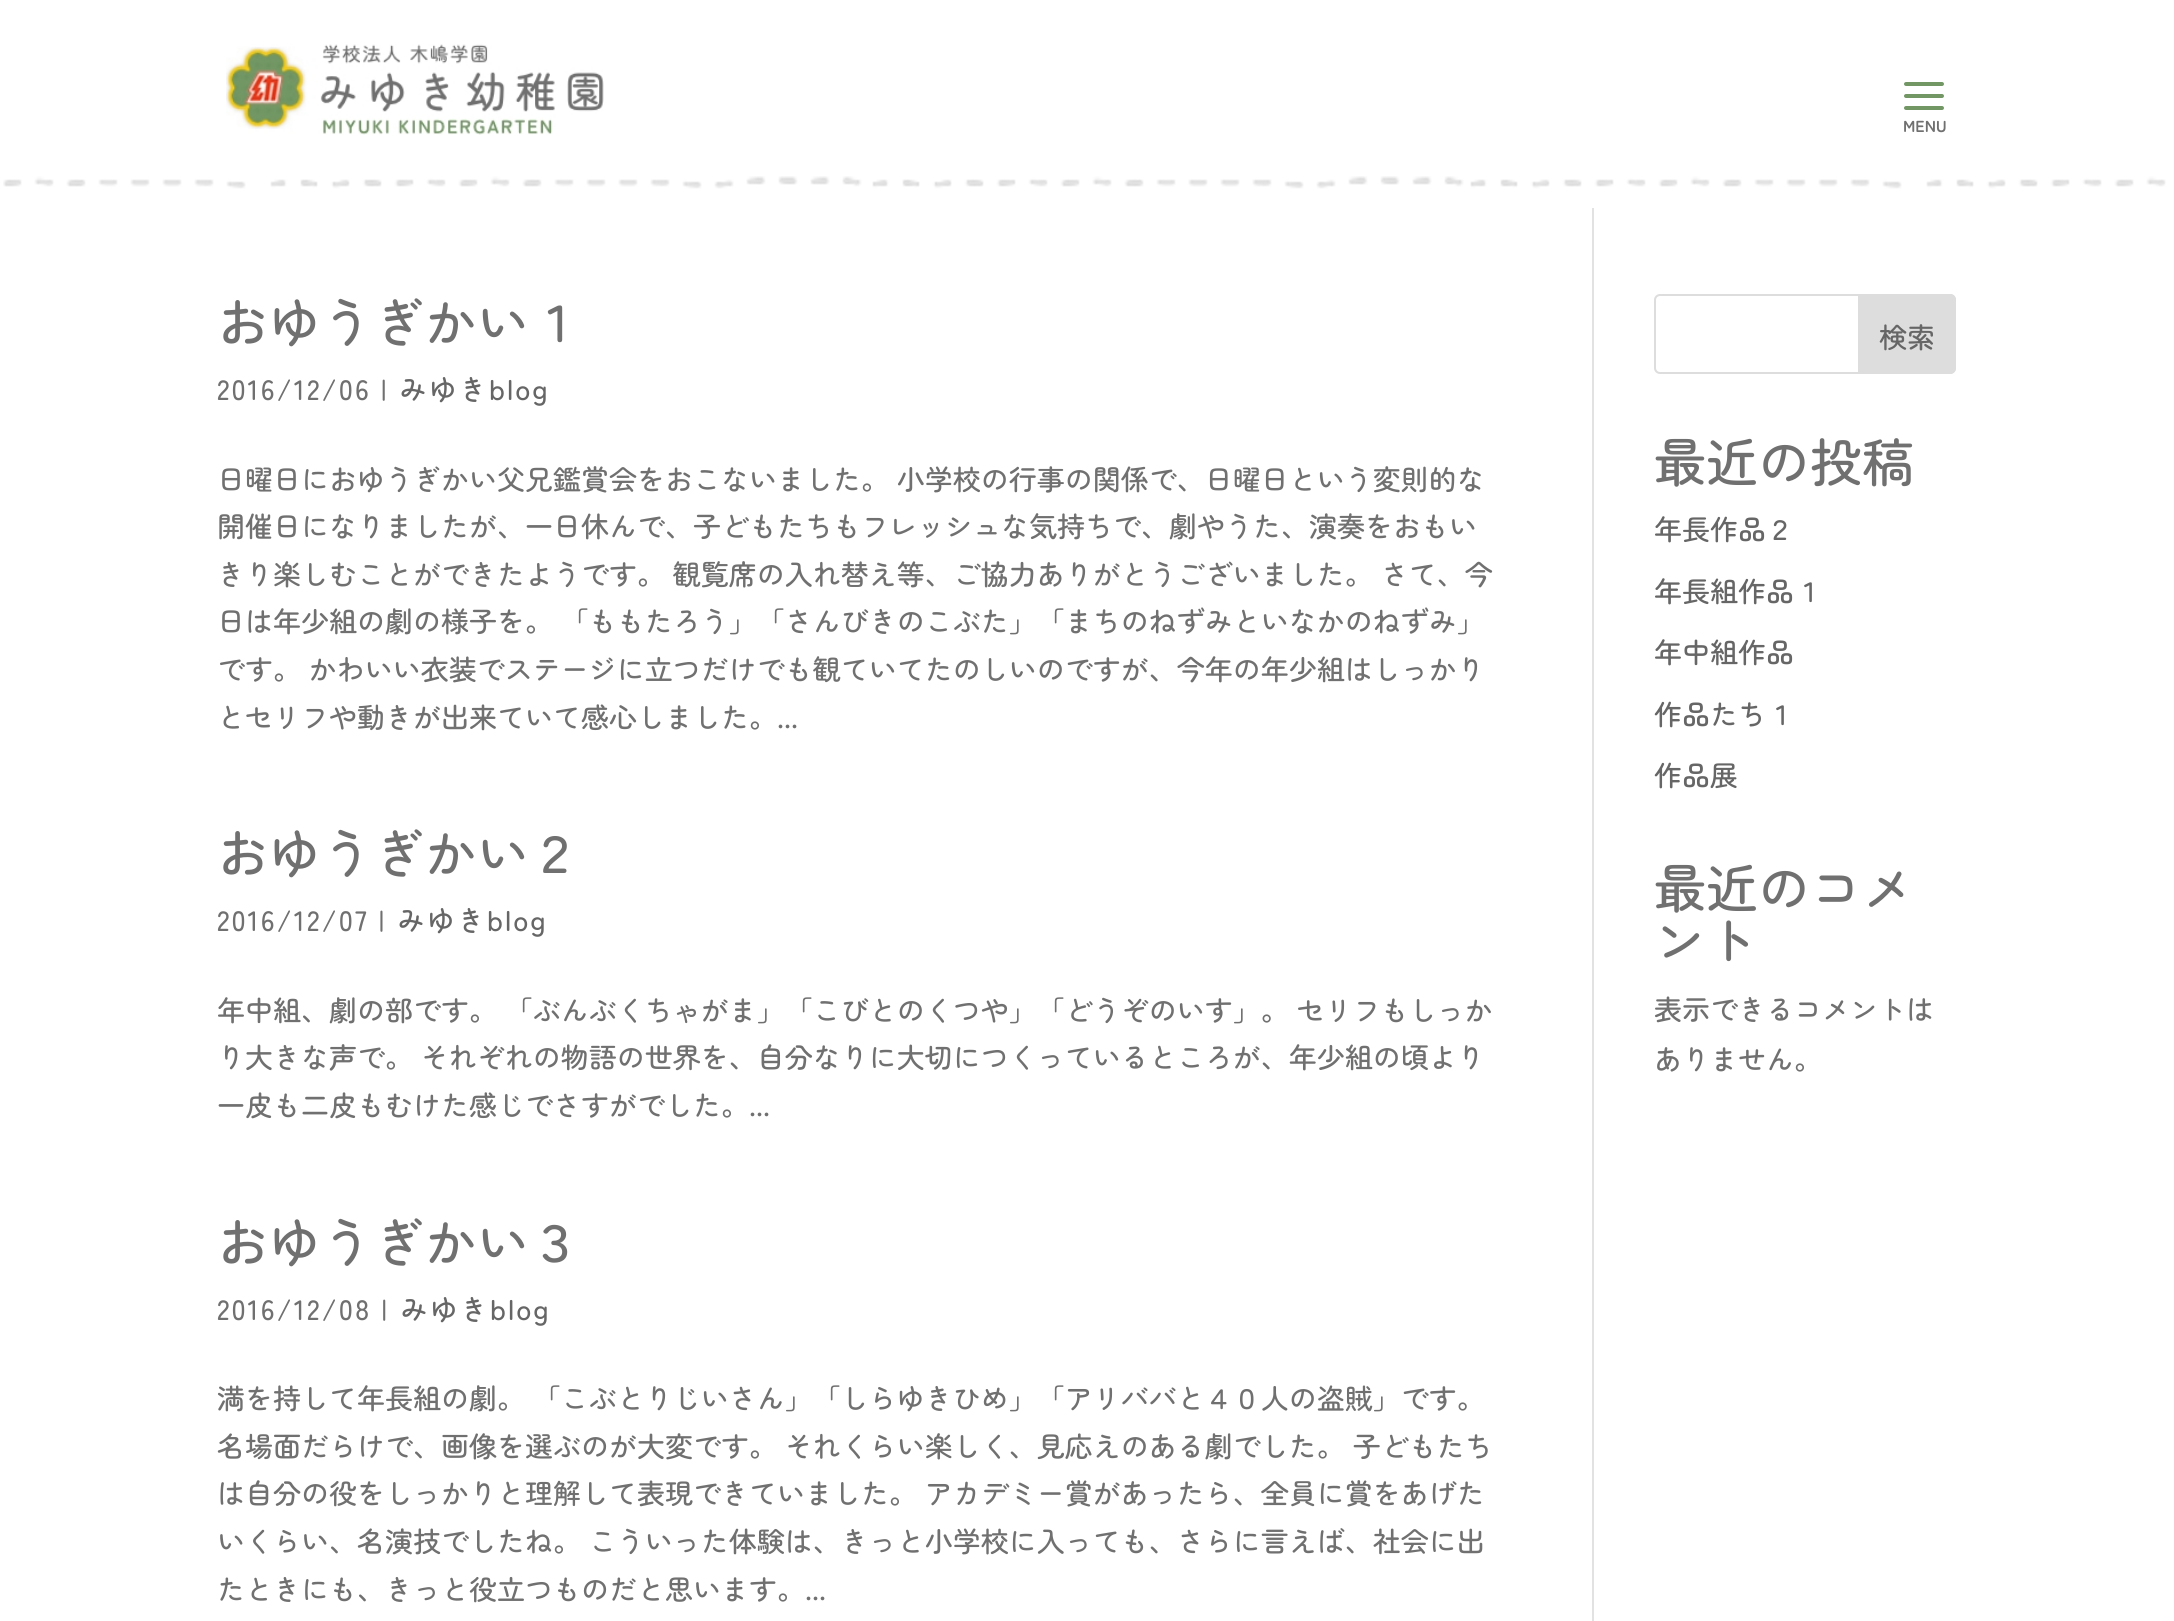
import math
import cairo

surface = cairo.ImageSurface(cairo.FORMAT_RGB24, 2174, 1621)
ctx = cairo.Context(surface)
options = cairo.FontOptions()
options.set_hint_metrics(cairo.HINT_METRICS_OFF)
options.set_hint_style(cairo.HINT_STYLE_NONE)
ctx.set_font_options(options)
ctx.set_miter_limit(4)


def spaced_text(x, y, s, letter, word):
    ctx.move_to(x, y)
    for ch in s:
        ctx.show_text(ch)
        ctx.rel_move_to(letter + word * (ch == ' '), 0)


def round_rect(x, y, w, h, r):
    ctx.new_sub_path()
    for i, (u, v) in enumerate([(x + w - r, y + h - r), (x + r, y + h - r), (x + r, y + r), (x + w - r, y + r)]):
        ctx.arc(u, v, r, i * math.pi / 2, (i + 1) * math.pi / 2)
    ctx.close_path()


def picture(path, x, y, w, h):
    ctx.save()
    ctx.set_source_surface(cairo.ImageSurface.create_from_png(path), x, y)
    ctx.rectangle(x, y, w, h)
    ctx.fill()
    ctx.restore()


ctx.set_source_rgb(1, 1, 1)
ctx.paint()
picture("img1.png", 3, 176, 2163, 13)
picture("img2.png", 226, 44, 378, 91)
picture("img3.png", 1904, 82, 40, 28)
ctx.select_font_face("Zen Maru Gothic", cairo.FONT_SLANT_NORMAL, cairo.FONT_WEIGHT_BOLD)
ctx.set_font_size(16)
ctx.set_source_rgb(0.439, 0.439, 0.439)
ctx.move_to(1903, 132)
ctx.show_text("MENU")
ctx.set_source_rgb(0.886, 0.886, 0.886)
ctx.rectangle(1592, 208, 2, 1413)
ctx.fill()
ctx.select_font_face("Zen Maru Gothic Medium")
ctx.set_font_size(52)
ctx.set_source_rgb(0.439, 0.439, 0.439)
ctx.move_to(217, 342)
ctx.show_text("おゆうぎかい１")
ctx.set_font_size(28)
spaced_text(217, 400, "2016/12/06 |", 2, 0)
ctx.set_source_rgb(0.4, 0.4, 0.4)
spaced_text(399, 400, "みゆきblog", 2, 0)
ctx.set_source_rgb(0.439, 0.439, 0.439)
ctx.move_to(217, 490)
ctx.show_text("日曜日におゆうぎかい父兄鑑賞会をおこないました。 小学校の行事の関係で、日曜日という変則的な")
ctx.move_to(217, 537)
ctx.show_text("開催日になりましたが、一日休んで、子どもたちもフレッシュな気持ちで、劇やうた、演奏をおもい")
ctx.move_to(217, 585)
ctx.show_text("きり楽しむことができたようです。 観覧席の入れ替え等、ご協力ありがとうございました。 さて、今")
ctx.move_to(217, 632)
ctx.show_text("日は年少組の劇の様子を。 「ももたろう」「さんびきのこぶた」「まちのねずみといなかのねずみ」")
ctx.move_to(217, 680)
ctx.show_text("です。 かわいい衣装でステージに立つだけでも観ていてたのしいのですが、今年の年少組はしっかり")
ctx.move_to(217, 728)
ctx.show_text("とセリフや動きが出来ていて感心しました。...")
ctx.set_font_size(52)
ctx.move_to(217, 873)
ctx.show_text("おゆうぎかい２")
ctx.set_font_size(28)
spaced_text(217, 931, "2016/12/07 |", 2, 0)
ctx.set_source_rgb(0.4, 0.4, 0.4)
spaced_text(397, 931, "みゆきblog", 2, 0)
ctx.set_source_rgb(0.439, 0.439, 0.439)
ctx.move_to(217, 1021)
ctx.show_text("年中組、劇の部です。 「ぶんぶくちゃがま」「こびとのくつや」「どうぞのいす」。 セリフもしっか")
ctx.move_to(217, 1068)
ctx.show_text("り大きな声で。 それぞれの物語の世界を、自分なりに大切につくっているところが、年少組の頃より")
ctx.move_to(217, 1116)
ctx.show_text("一皮も二皮もむけた感じでさすがでした。...")
ctx.set_font_size(52)
ctx.move_to(217, 1262)
ctx.show_text("おゆうぎかい３")
ctx.set_font_size(28)
spaced_text(217, 1320, "2016/12/08 |", 2, 0)
ctx.set_source_rgb(0.4, 0.4, 0.4)
spaced_text(400, 1320, "みゆきblog", 2, 0)
ctx.set_source_rgb(0.439, 0.439, 0.439)
ctx.move_to(217, 1409)
ctx.show_text("満を持して年長組の劇。 「こぶとりじいさん」「しらゆきひめ」「アリババと４０人の盗賊」です。")
ctx.move_to(217, 1457)
ctx.show_text("名場面だらけで、画像を選ぶのが大変です。 それくらい楽しく、見応えのある劇でした。 子どもたち")
ctx.move_to(217, 1504)
ctx.show_text("は自分の役をしっかりと理解して表現できていました。 アカデミー賞があったら、全員に賞をあげた")
ctx.move_to(217, 1552)
ctx.show_text("いくらい、名演技でしたね。 こういった体験は、きっと小学校に入っても、さらに言えば、社会に出")
ctx.move_to(217, 1600)
ctx.show_text("たときにも、きっと役立つものだと思います。...")
round_rect(1655, 295, 300, 78, 5)
ctx.set_source_rgb(0.867, 0.867, 0.867)
ctx.stroke()
ctx.new_path()
ctx.move_to(1859, 295)
ctx.line_to(1950, 295)
ctx.curve_to(1953, 295, 1955, 297, 1955, 300)
ctx.line_to(1955, 368)
ctx.curve_to(1955, 371, 1953, 373, 1950, 373)
ctx.line_to(1859, 373)
ctx.close_path()
ctx.fill_preserve()
ctx.stroke()
ctx.set_source_rgb(0.4, 0.4, 0.4)
ctx.move_to(1879, 348)
ctx.show_text("検索")
ctx.set_font_size(52)
ctx.set_source_rgb(0.439, 0.439, 0.439)
ctx.move_to(1654, 482)
ctx.show_text("最近の投稿")
ctx.set_font_size(28)
ctx.set_source_rgb(0.4, 0.4, 0.4)
ctx.move_to(1654, 540)
ctx.show_text("年長作品２")
ctx.move_to(1654, 602)
ctx.show_text("年長組作品１")
ctx.move_to(1654, 663)
ctx.show_text("年中組作品")
ctx.move_to(1654, 725)
ctx.show_text("作品たち１")
ctx.move_to(1654, 786)
ctx.show_text("作品展")
ctx.set_font_size(52)
ctx.set_source_rgb(0.439, 0.439, 0.439)
ctx.move_to(1654, 908)
ctx.show_text("最近のコメ")
ctx.move_to(1654, 960)
ctx.show_text("ント")
ctx.set_font_size(28)
ctx.move_to(1654, 1020)
ctx.show_text("表示できるコメントは")
ctx.move_to(1654, 1070)
ctx.show_text("ありません。")
surface.write_to_png("page.png")
